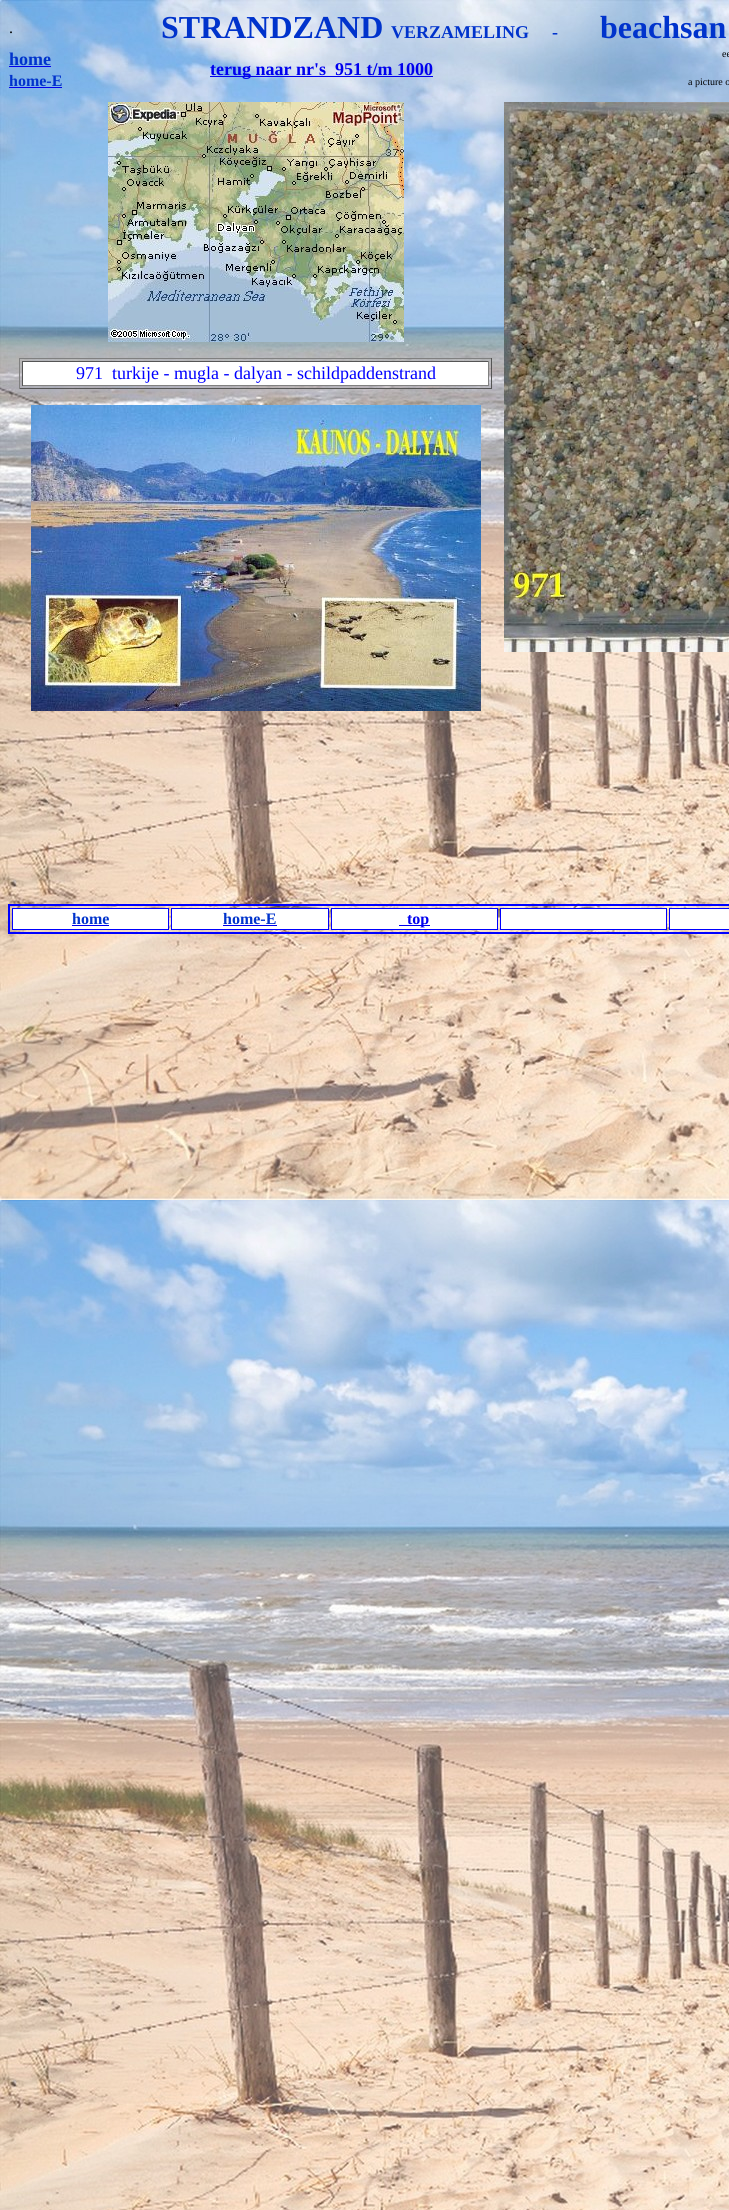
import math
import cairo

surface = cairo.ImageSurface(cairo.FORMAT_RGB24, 729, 2210)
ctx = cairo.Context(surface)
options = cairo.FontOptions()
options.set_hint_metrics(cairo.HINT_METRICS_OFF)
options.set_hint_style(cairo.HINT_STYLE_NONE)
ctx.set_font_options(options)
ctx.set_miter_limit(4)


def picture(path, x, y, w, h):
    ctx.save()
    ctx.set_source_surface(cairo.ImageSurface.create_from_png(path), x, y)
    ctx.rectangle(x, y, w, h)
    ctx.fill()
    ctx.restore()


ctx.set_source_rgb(1, 1, 1)
ctx.paint()
picture("img1.png", 0, 0, 729, 2210)
ctx.select_font_face("Liberation Serif")
ctx.set_font_size(16)
ctx.set_source_rgb(0, 0, 0)
ctx.move_to(9, 33)
ctx.show_text(".")
ctx.select_font_face("Liberation Serif", cairo.FONT_SLANT_NORMAL, cairo.FONT_WEIGHT_BOLD)
ctx.set_font_size(32)
ctx.set_source_rgb(0, 0.2, 0.8)
ctx.move_to(161, 38)
ctx.show_text("STRANDZAND")
ctx.set_font_size(18)
ctx.move_to(391, 38)
ctx.show_text("VERZAMELING")
ctx.move_to(552, 38)
ctx.show_text("-")
ctx.set_font_size(32)
ctx.move_to(600, 38)
ctx.show_text("beachsan")
ctx.set_font_size(18)
ctx.move_to(9, 65)
ctx.show_text("home")
ctx.set_source_rgb(0, 0, 0.933)
ctx.rectangle(9, 66, 42, 1)
ctx.fill()
ctx.select_font_face("Liberation Serif")
ctx.set_font_size(10)
ctx.set_source_rgb(0, 0, 0)
ctx.move_to(722, 57)
ctx.show_text("ee")
ctx.set_source_rgb(0, 0, 0.933)
ctx.rectangle(210, 76, 223, 1)
ctx.fill()
ctx.select_font_face("Liberation Serif", cairo.FONT_SLANT_NORMAL, cairo.FONT_WEIGHT_BOLD)
ctx.set_font_size(18)
ctx.move_to(210, 75)
ctx.show_text("terug naar nr's")
ctx.move_to(335, 75)
ctx.show_text("951 t/m 1000")
ctx.set_font_size(16)
ctx.set_source_rgb(0, 0.2, 0.8)
ctx.move_to(9, 86)
ctx.show_text("home-E")
ctx.set_source_rgb(0, 0, 0.933)
ctx.rectangle(9, 87, 53, 1)
ctx.fill()
ctx.select_font_face("Liberation Serif")
ctx.set_font_size(10)
ctx.set_source_rgb(0, 0, 0)
ctx.move_to(688, 85)
ctx.show_text("a picture o")
picture("img2.png", 108, 102, 296, 240)
ctx.set_source_rgb(0.502, 0.502, 0.502)
ctx.rectangle(19, 358, 473, 1)
ctx.fill()
ctx.set_source_rgb(0.333, 0.333, 0.333)
ctx.rectangle(491, 358, 1, 31)
ctx.fill()
ctx.rectangle(19, 388, 473, 1)
ctx.fill()
ctx.set_source_rgb(0.502, 0.502, 0.502)
ctx.rectangle(19, 358, 1, 31)
ctx.fill()
ctx.set_source_rgb(1, 1, 1)
ctx.rectangle(23, 362, 465, 23)
ctx.fill()
ctx.set_source_rgb(0.333, 0.333, 0.333)
ctx.rectangle(22, 361, 467, 1)
ctx.fill()
ctx.set_source_rgb(0.502, 0.502, 0.502)
ctx.rectangle(488, 361, 1, 25)
ctx.fill()
ctx.rectangle(22, 385, 467, 1)
ctx.fill()
ctx.set_source_rgb(0.333, 0.333, 0.333)
ctx.rectangle(22, 361, 1, 25)
ctx.fill()
ctx.set_font_size(18)
ctx.set_source_rgb(0, 0, 1)
ctx.move_to(76, 379)
ctx.show_text("971")
ctx.move_to(112, 379)
ctx.show_text("turkije - mugla - dalyan - schildpaddenstrand")
picture("img3.png", 31, 405, 450, 306)
picture("img4.png", 504, 102, 225, 550)
ctx.rectangle(9, 905, 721, 28)
ctx.stroke()
ctx.set_source_rgb(1, 1, 1)
ctx.rectangle(12.5, 908.5, 156, 21)
ctx.fill_preserve()
ctx.set_source_rgb(0, 0, 1)
ctx.set_line_width(1)
ctx.stroke()
ctx.select_font_face("Liberation Serif", cairo.FONT_SLANT_NORMAL, cairo.FONT_WEIGHT_BOLD)
ctx.set_font_size(16)
ctx.set_source_rgb(0, 0.2, 0.8)
ctx.move_to(72, 924)
ctx.show_text("home")
ctx.set_source_rgb(0, 0, 0.933)
ctx.rectangle(72, 925, 37, 1)
ctx.fill()
ctx.set_source_rgb(1, 1, 1)
ctx.rectangle(171.5, 908.5, 157, 21)
ctx.fill_preserve()
ctx.set_source_rgb(0, 0, 1)
ctx.stroke()
ctx.set_source_rgb(0, 0.2, 0.8)
ctx.move_to(223, 924)
ctx.show_text("home-E")
ctx.set_source_rgb(0, 0, 0.933)
ctx.rectangle(223, 925, 54, 1)
ctx.fill()
ctx.set_source_rgb(1, 1, 1)
ctx.rectangle(331.5, 908.5, 166, 21)
ctx.fill_preserve()
ctx.set_source_rgb(0, 0, 1)
ctx.stroke()
ctx.set_source_rgb(0, 0, 0.933)
ctx.rectangle(399, 925, 31, 1)
ctx.fill()
ctx.move_to(407, 924)
ctx.show_text("top")
ctx.set_source_rgb(1, 1, 1)
ctx.rectangle(500.5, 908.5, 166, 21)
ctx.fill_preserve()
ctx.set_source_rgb(0, 0, 1)
ctx.stroke()
ctx.set_source_rgb(1, 1, 1)
ctx.rectangle(669.5, 908.5, 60, 21)
ctx.fill_preserve()
ctx.set_source_rgb(0, 0, 1)
ctx.stroke()
surface.write_to_png("page.png")
